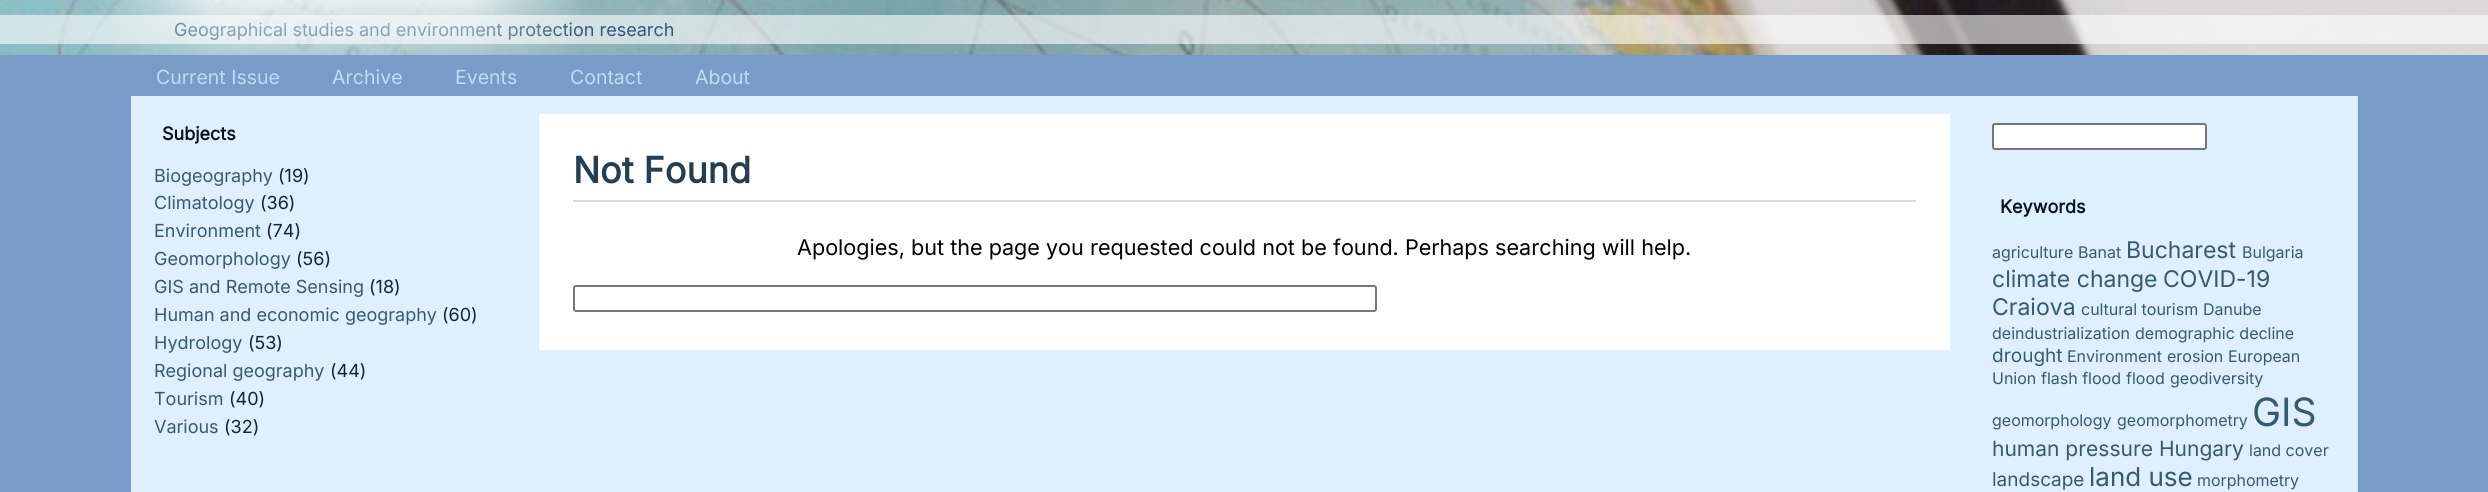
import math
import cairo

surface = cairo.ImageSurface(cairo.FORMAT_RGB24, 2488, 492)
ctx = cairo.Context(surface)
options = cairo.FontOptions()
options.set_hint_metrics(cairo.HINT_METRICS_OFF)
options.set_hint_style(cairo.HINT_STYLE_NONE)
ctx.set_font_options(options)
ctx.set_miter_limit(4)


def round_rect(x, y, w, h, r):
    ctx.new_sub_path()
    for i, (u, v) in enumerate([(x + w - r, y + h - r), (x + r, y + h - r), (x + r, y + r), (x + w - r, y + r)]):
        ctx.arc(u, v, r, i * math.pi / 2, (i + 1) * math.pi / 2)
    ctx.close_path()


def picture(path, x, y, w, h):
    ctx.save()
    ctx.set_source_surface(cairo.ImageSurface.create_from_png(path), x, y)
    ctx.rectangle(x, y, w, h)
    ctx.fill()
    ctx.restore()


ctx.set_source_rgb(0.471, 0.612, 0.78)
ctx.paint()
picture("img2.png", 0, 0, 2488, 55)
ctx.set_source_rgba(1, 1, 1, 0.6)
ctx.rectangle(0, 15, 2488, 29)
ctx.fill()
ctx.select_font_face("Inter")
ctx.set_font_size(18)
ctx.set_source_rgb(0.18, 0.345, 0.514)
ctx.move_to(174, 36)
ctx.show_text("Geographical studies and environment protection research")
picture("img1.png", 99, 0, 481, 55)
ctx.set_font_size(19.5)
ctx.set_source_rgb(0.729, 0.871, 0.941)
ctx.move_to(156, 84)
ctx.show_text("Current Issue")
ctx.move_to(332, 84)
ctx.show_text("Archive")
ctx.move_to(455, 84)
ctx.show_text("Events")
ctx.move_to(570, 84)
ctx.show_text("Contact")
ctx.move_to(695, 84)
ctx.show_text("About")
ctx.set_source_rgb(0.878, 0.937, 0.992)
ctx.rectangle(131, 96, 390, 396)
ctx.fill()
ctx.select_font_face("Inter", cairo.FONT_SLANT_NORMAL, cairo.FONT_WEIGHT_BOLD)
ctx.set_font_size(18)
ctx.set_source_rgb(0.031, 0.067, 0.11)
ctx.move_to(162, 140)
ctx.show_text("Subjects")
ctx.select_font_face("Inter")
ctx.set_source_rgb(0.204, 0.357, 0.455)
ctx.move_to(154, 182)
ctx.show_text("Biogeography")
ctx.set_source_rgb(0.063, 0.145, 0.235)
ctx.move_to(278, 182)
ctx.show_text("(19)")
ctx.set_source_rgb(0.204, 0.357, 0.455)
ctx.move_to(154, 209)
ctx.show_text("Climatology")
ctx.set_source_rgb(0.063, 0.145, 0.235)
ctx.move_to(260, 209)
ctx.show_text("(36)")
ctx.set_source_rgb(0.204, 0.357, 0.455)
ctx.move_to(154, 237)
ctx.show_text("Environment")
ctx.set_source_rgb(0.063, 0.145, 0.235)
ctx.move_to(266, 237)
ctx.show_text("(74)")
ctx.set_source_rgb(0.204, 0.357, 0.455)
ctx.move_to(154, 265)
ctx.show_text("Geomorphology")
ctx.set_source_rgb(0.063, 0.145, 0.235)
ctx.move_to(296, 265)
ctx.show_text("(56)")
ctx.set_source_rgb(0.204, 0.357, 0.455)
ctx.move_to(154, 293)
ctx.show_text("GIS and Remote Sensing")
ctx.set_source_rgb(0.063, 0.145, 0.235)
ctx.move_to(369, 293)
ctx.show_text("(18)")
ctx.set_source_rgb(0.204, 0.357, 0.455)
ctx.move_to(154, 321)
ctx.show_text("Human and economic geography")
ctx.set_source_rgb(0.063, 0.145, 0.235)
ctx.move_to(442, 321)
ctx.show_text("(60)")
ctx.set_source_rgb(0.204, 0.357, 0.455)
ctx.move_to(154, 349)
ctx.show_text("Hydrology")
ctx.set_source_rgb(0.063, 0.145, 0.235)
ctx.move_to(248, 349)
ctx.show_text("(53)")
ctx.set_source_rgb(0.204, 0.357, 0.455)
ctx.move_to(154, 377)
ctx.show_text("Regional geography")
ctx.set_source_rgb(0.063, 0.145, 0.235)
ctx.move_to(330, 377)
ctx.show_text("(44)")
ctx.set_source_rgb(0.204, 0.357, 0.455)
ctx.move_to(154, 405)
ctx.show_text("Tourism")
ctx.set_source_rgb(0.063, 0.145, 0.235)
ctx.move_to(229, 405)
ctx.show_text("(40)")
ctx.set_source_rgb(0.204, 0.357, 0.455)
ctx.move_to(154, 433)
ctx.show_text("Various")
ctx.set_source_rgb(0.063, 0.145, 0.235)
ctx.move_to(224, 433)
ctx.show_text("(32)")
ctx.set_source_rgb(0.878, 0.937, 0.988)
ctx.rectangle(521, 96, 1447, 396)
ctx.fill()
ctx.set_source_rgb(1, 1, 1)
ctx.rectangle(539, 114, 1411, 236)
ctx.fill()
ctx.set_source_rgb(0.863, 0.863, 0.863)
ctx.rectangle(573, 200, 1343, 2)
ctx.fill()
ctx.select_font_face("Inter", cairo.FONT_SLANT_NORMAL, cairo.FONT_WEIGHT_BOLD)
ctx.set_font_size(36)
ctx.set_source_rgb(0.141, 0.247, 0.318)
ctx.move_to(573, 183)
ctx.show_text("Not Found")
ctx.select_font_face("Inter")
ctx.set_font_size(21.6)
ctx.set_source_rgb(0, 0, 0)
ctx.move_to(797, 255)
ctx.show_text("Apologies, but the page you requested could not be found. Perhaps searching will help.")
round_rect(574, 286, 802, 25, 2)
ctx.set_source_rgb(0.463, 0.463, 0.463)
ctx.stroke()
ctx.set_source_rgb(0.878, 0.937, 0.992)
ctx.rectangle(1968, 96, 390, 396)
ctx.fill()
ctx.set_source_rgb(1, 1, 1)
round_rect(1993, 124, 213, 25, 2)
ctx.fill_preserve()
ctx.set_source_rgb(0.463, 0.463, 0.463)
ctx.stroke()
ctx.select_font_face("Inter", cairo.FONT_SLANT_NORMAL, cairo.FONT_WEIGHT_BOLD)
ctx.set_font_size(18)
ctx.set_source_rgb(0.031, 0.067, 0.11)
ctx.move_to(2000, 213)
ctx.show_text("Keywords")
ctx.select_font_face("Inter")
ctx.set_font_size(16)
ctx.set_source_rgb(0.204, 0.357, 0.455)
ctx.move_to(1992, 258)
ctx.show_text("agriculture")
ctx.move_to(2078, 258)
ctx.show_text("Banat")
ctx.set_font_size(23)
ctx.move_to(2126, 258)
ctx.show_text("Bucharest")
ctx.set_font_size(16)
ctx.move_to(2242, 258)
ctx.show_text("Bulgaria")
ctx.set_font_size(23)
ctx.move_to(1992, 287)
ctx.show_text("climate change")
ctx.move_to(2163, 287)
ctx.show_text("COVID-19")
ctx.move_to(1992, 315)
ctx.show_text("Craiova")
ctx.set_font_size(16)
ctx.move_to(2081, 315)
ctx.show_text("cultural tourism")
ctx.move_to(2203, 315)
ctx.show_text("Danube")
ctx.move_to(1992, 339)
ctx.show_text("deindustrialization")
ctx.move_to(2135, 339)
ctx.show_text("demographic decline")
ctx.set_font_size(19)
ctx.move_to(1992, 362)
ctx.show_text("drought")
ctx.set_font_size(16)
ctx.move_to(2067, 362)
ctx.show_text("Environment")
ctx.move_to(2167, 362)
ctx.show_text("erosion")
ctx.move_to(2228, 362)
ctx.show_text("European")
ctx.move_to(1992, 384)
ctx.show_text("Union")
ctx.move_to(2041, 384)
ctx.show_text("flash flood")
ctx.move_to(2126, 384)
ctx.show_text("flood")
ctx.move_to(2170, 384)
ctx.show_text("geodiversity")
ctx.move_to(1992, 426)
ctx.show_text("geomorphology")
ctx.move_to(2117, 426)
ctx.show_text("geomorphometry")
ctx.set_font_size(39)
ctx.move_to(2252, 426)
ctx.show_text("GIS")
ctx.set_font_size(21)
ctx.move_to(1992, 456)
ctx.show_text("human pressure")
ctx.move_to(2159, 456)
ctx.show_text("Hungary")
ctx.set_font_size(16)
ctx.move_to(2249, 456)
ctx.show_text("land cover")
ctx.set_font_size(19)
ctx.move_to(1992, 486)
ctx.show_text("landscape")
ctx.set_font_size(26)
ctx.move_to(2089, 486)
ctx.show_text("land use")
ctx.set_font_size(16)
ctx.move_to(2197, 486)
ctx.show_text("morphometry")
surface.write_to_png("page.png")
